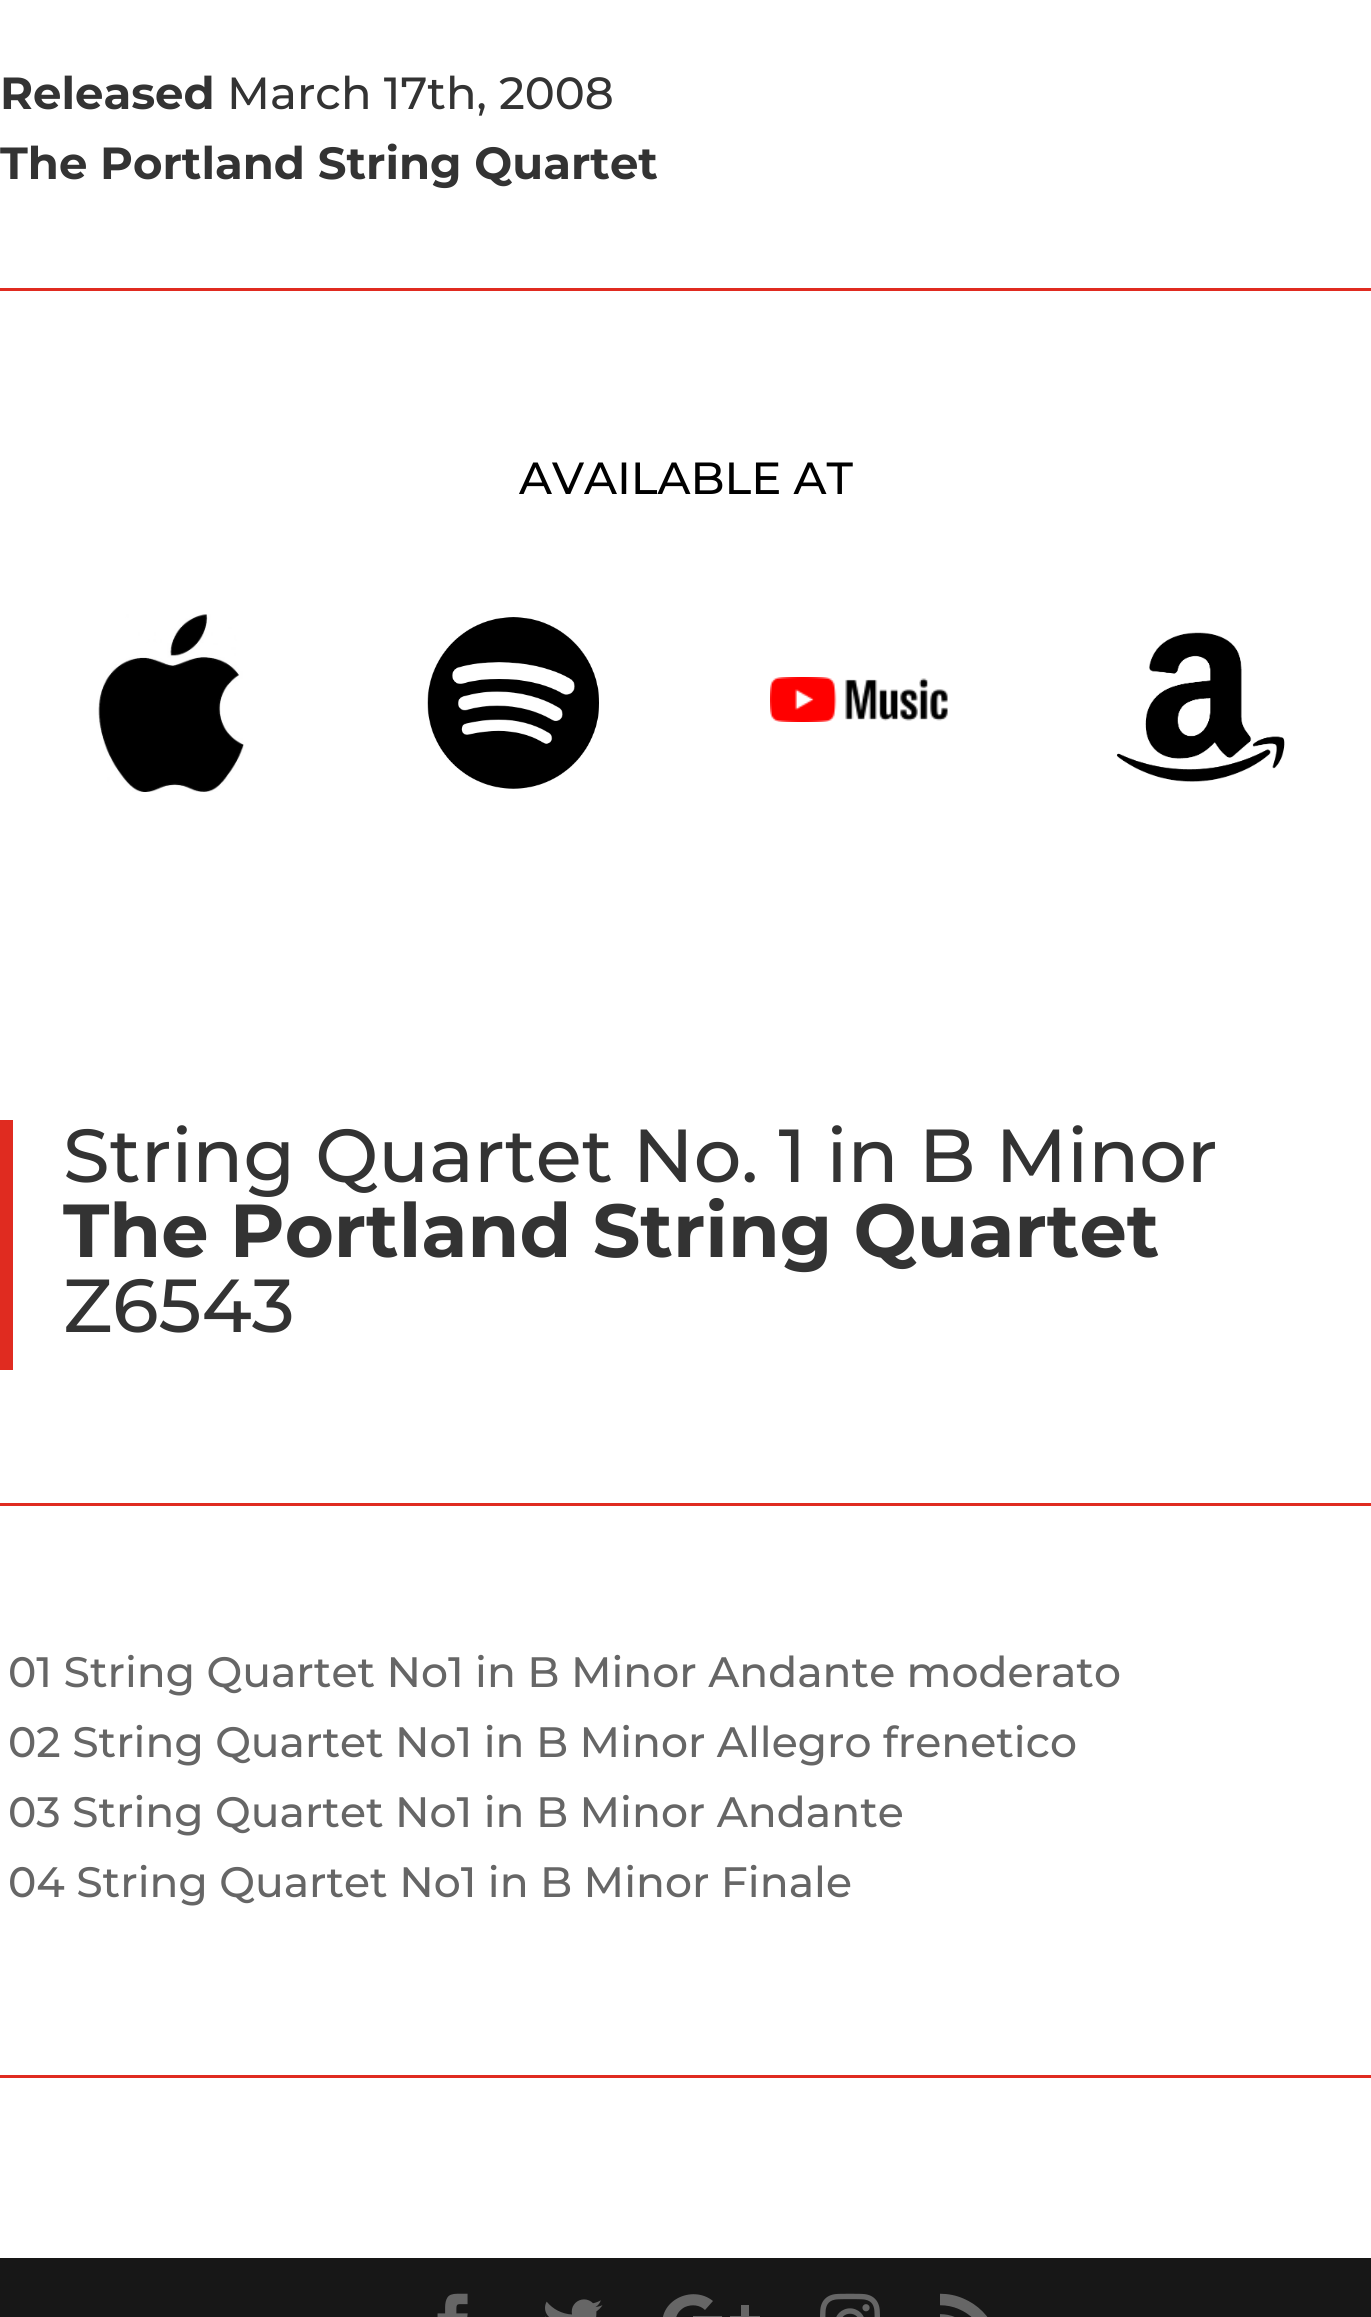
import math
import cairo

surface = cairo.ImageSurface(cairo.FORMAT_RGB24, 1371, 2317)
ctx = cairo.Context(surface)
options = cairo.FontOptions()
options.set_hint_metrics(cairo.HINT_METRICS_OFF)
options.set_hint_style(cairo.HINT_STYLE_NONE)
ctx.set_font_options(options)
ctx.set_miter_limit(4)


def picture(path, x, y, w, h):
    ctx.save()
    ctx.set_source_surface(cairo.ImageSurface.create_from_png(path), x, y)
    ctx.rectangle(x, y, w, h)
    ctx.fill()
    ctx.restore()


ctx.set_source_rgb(0.09, 0.09, 0.09)
ctx.paint()
ctx.set_source_rgb(1, 1, 1)
ctx.rectangle(0, 0, 1371, 2258)
ctx.fill()
ctx.select_font_face("Montserrat", cairo.FONT_SLANT_NORMAL, cairo.FONT_WEIGHT_BOLD)
ctx.set_font_size(45)
ctx.set_source_rgb(0.2, 0.2, 0.2)
ctx.move_to(0, 109)
ctx.show_text("Released")
ctx.select_font_face("Montserrat Medium")
ctx.move_to(227, 109)
ctx.show_text("March 17th, 2008")
ctx.select_font_face("Montserrat", cairo.FONT_SLANT_NORMAL, cairo.FONT_WEIGHT_BOLD)
ctx.move_to(0, 179)
ctx.show_text("The Portland String Quartet")
ctx.set_source_rgb(0.878, 0.169, 0.125)
ctx.rectangle(0, 288, 1371, 3)
ctx.fill()
ctx.select_font_face("Montserrat Medium")
ctx.set_source_rgb(0, 0, 0)
ctx.move_to(519, 494)
ctx.show_text("AVAILABLE AT")
picture("img1.png", 98, 614, 146, 178)
picture("img2.png", 427, 617, 172, 172)
picture("img3.png", 770, 677, 178, 45)
picture("img4.png", 1116, 632, 169, 150)
ctx.set_source_rgb(0.878, 0.169, 0.125)
ctx.rectangle(0, 1120, 13, 250)
ctx.fill()
ctx.set_font_size(75)
ctx.set_source_rgb(0.2, 0.2, 0.2)
ctx.move_to(63, 1182)
ctx.show_text("String Quartet No. 1 in B Minor")
ctx.select_font_face("Montserrat", cairo.FONT_SLANT_NORMAL, cairo.FONT_WEIGHT_BOLD)
ctx.move_to(63, 1257)
ctx.show_text("The Portland String Quartet")
ctx.select_font_face("Montserrat Medium")
ctx.move_to(63, 1332)
ctx.show_text("Z6543")
ctx.set_source_rgb(0.878, 0.169, 0.125)
ctx.rectangle(0, 1503, 1371, 3)
ctx.fill()
ctx.set_font_size(42.5)
ctx.set_source_rgb(0.4, 0.4, 0.4)
ctx.move_to(8, 1687)
ctx.show_text("01 String Quartet No1 in B Minor Andante moderato")
ctx.move_to(8, 1757)
ctx.show_text("02 String Quartet No1 in B Minor Allegro frenetico")
ctx.move_to(8, 1827)
ctx.show_text("03 String Quartet No1 in B Minor Andante")
ctx.move_to(8, 1897)
ctx.show_text("04 String Quartet No1 in B Minor Finale")
ctx.set_source_rgb(0.878, 0.169, 0.125)
ctx.rectangle(0, 2075, 1371, 3)
ctx.fill()
picture("img5.png", 437, 2293, 31, 24)
picture("img6.png", 545, 2299, 58, 18)
ctx.set_source_rgb(0.4, 0.4, 0.4)
ctx.new_path()
ctx.move_to(693, 2316)
ctx.line_to(693, 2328)
ctx.line_to(709, 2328)
ctx.curve_to(702, 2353, 670, 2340, 676, 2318)
ctx.curve_to(677, 2313, 681, 2309, 685, 2307)
ctx.curve_to(692, 2304, 700, 2305, 705, 2310)
ctx.line_to(713, 2301)
ctx.curve_to(692, 2284, 657, 2301, 663, 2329)
ctx.curve_to(664, 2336, 668, 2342, 674, 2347)
ctx.curve_to(681, 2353, 691, 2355, 700, 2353)
ctx.curve_to(717, 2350, 725, 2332, 722, 2316)
ctx.close_path()
ctx.move_to(760, 2316)
ctx.line_to(749, 2316)
ctx.line_to(749, 2305)
ctx.line_to(741, 2305)
ctx.line_to(741, 2316)
ctx.line_to(730, 2316)
ctx.line_to(730, 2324)
ctx.line_to(741, 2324)
ctx.line_to(741, 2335)
ctx.line_to(749, 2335)
ctx.line_to(749, 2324)
ctx.line_to(760, 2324)
ctx.close_path()
ctx.fill()
picture("img7.png", 820, 2293, 60, 24)
picture("img8.png", 940, 2293, 48, 24)
surface.write_to_png("page.png")
